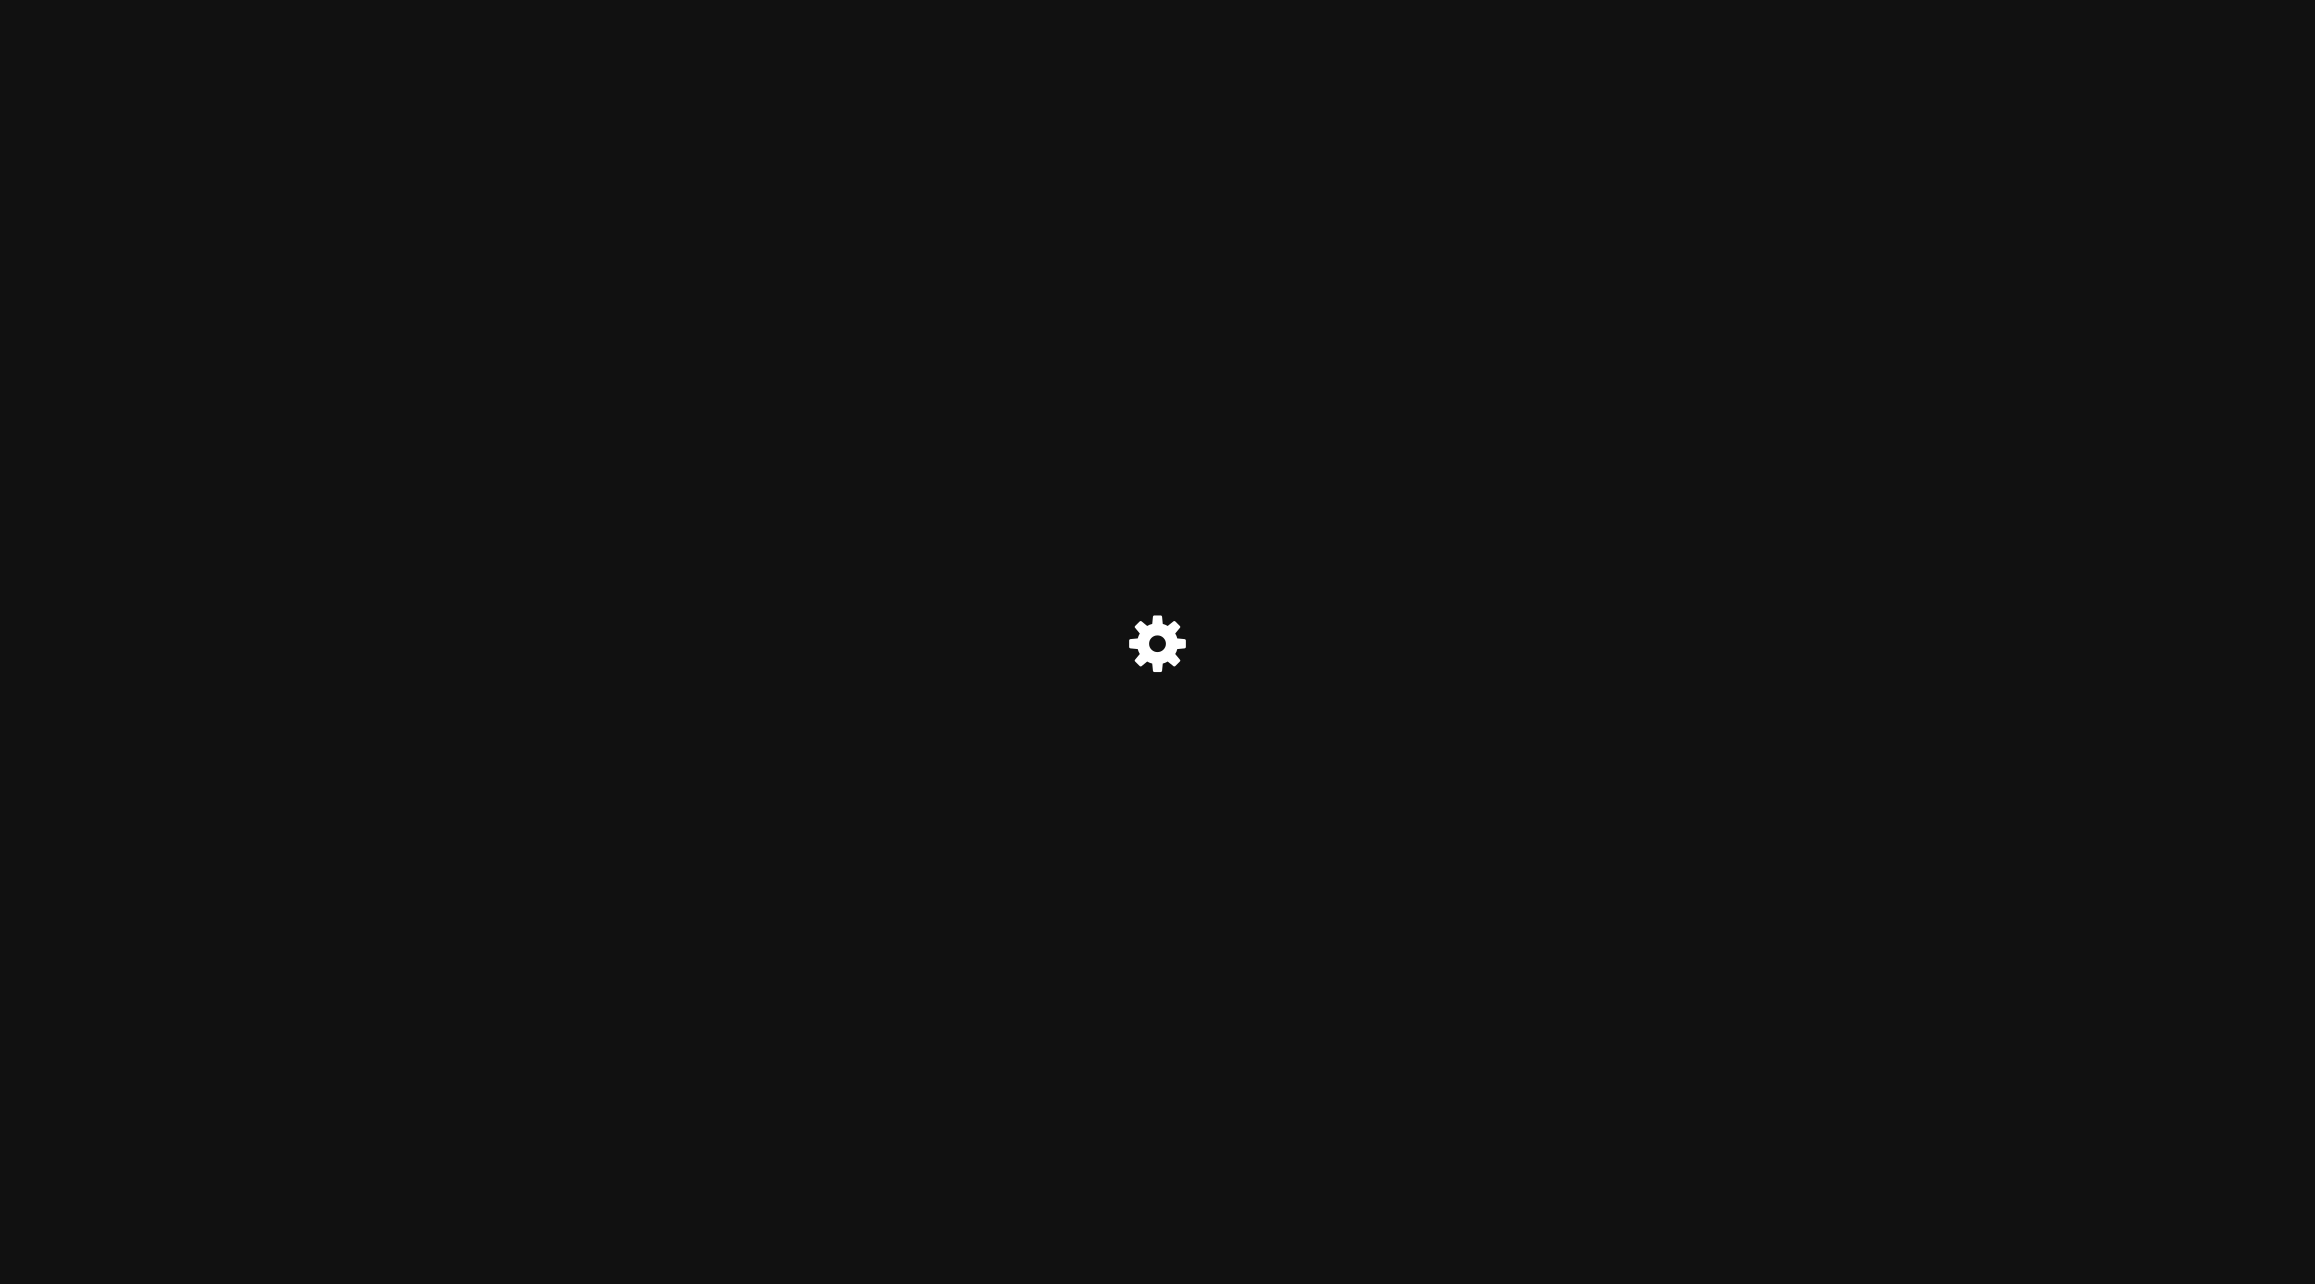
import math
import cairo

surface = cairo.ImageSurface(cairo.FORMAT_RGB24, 2315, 1284)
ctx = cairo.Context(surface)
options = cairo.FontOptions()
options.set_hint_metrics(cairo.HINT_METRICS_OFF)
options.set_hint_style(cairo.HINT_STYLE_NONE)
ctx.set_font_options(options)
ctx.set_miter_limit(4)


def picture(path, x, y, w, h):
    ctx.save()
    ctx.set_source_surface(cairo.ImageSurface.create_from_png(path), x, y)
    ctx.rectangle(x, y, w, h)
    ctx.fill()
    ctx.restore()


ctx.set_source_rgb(0.067, 0.067, 0.067)
ctx.paint()
picture("img1.png", 1129, 615, 57, 58)
surface.write_to_png("page.png")
